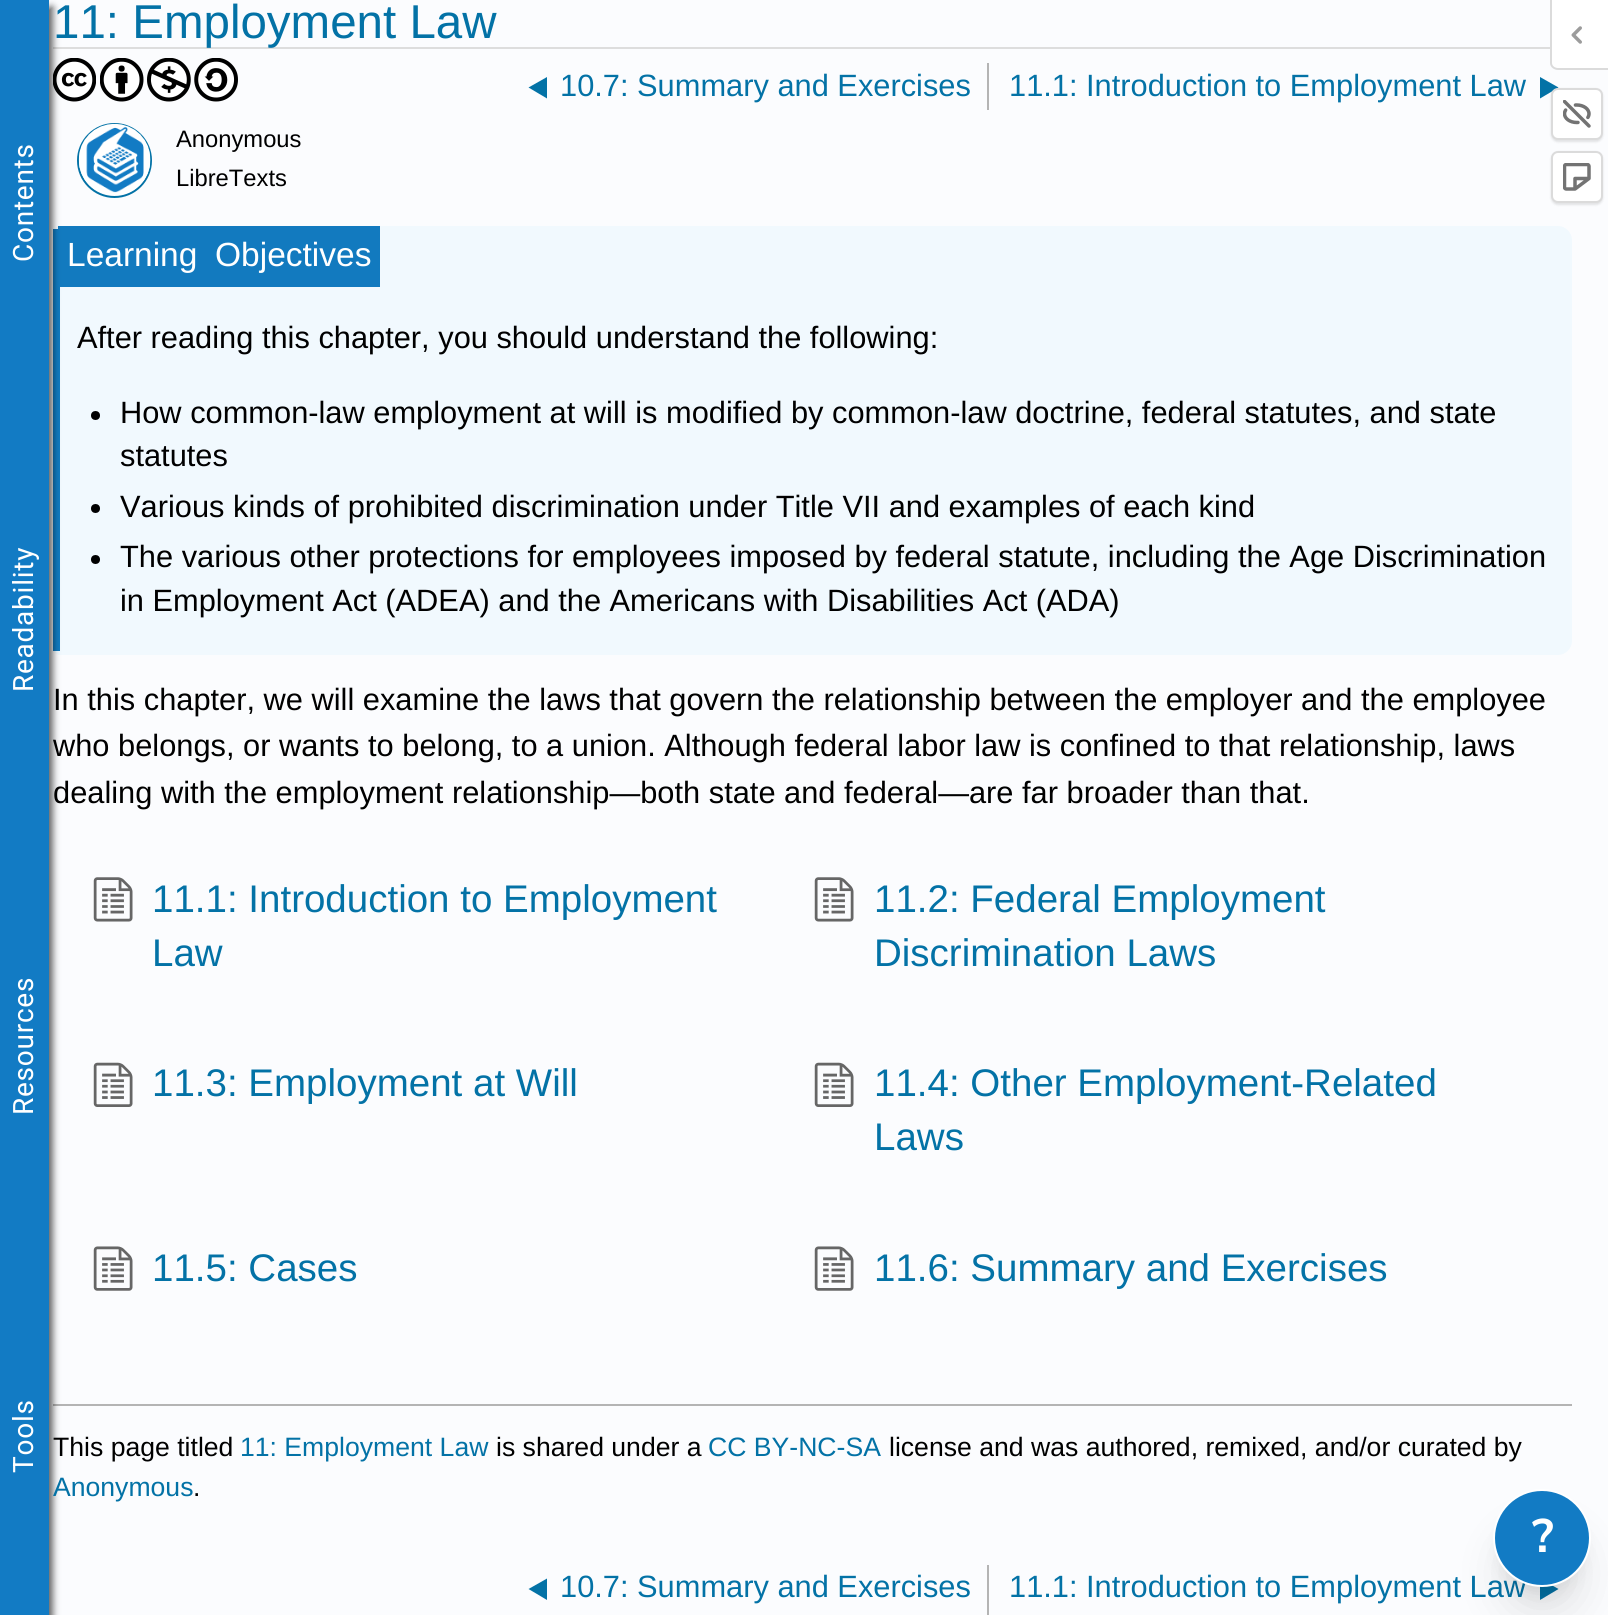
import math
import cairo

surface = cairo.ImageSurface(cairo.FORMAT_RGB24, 1608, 1615)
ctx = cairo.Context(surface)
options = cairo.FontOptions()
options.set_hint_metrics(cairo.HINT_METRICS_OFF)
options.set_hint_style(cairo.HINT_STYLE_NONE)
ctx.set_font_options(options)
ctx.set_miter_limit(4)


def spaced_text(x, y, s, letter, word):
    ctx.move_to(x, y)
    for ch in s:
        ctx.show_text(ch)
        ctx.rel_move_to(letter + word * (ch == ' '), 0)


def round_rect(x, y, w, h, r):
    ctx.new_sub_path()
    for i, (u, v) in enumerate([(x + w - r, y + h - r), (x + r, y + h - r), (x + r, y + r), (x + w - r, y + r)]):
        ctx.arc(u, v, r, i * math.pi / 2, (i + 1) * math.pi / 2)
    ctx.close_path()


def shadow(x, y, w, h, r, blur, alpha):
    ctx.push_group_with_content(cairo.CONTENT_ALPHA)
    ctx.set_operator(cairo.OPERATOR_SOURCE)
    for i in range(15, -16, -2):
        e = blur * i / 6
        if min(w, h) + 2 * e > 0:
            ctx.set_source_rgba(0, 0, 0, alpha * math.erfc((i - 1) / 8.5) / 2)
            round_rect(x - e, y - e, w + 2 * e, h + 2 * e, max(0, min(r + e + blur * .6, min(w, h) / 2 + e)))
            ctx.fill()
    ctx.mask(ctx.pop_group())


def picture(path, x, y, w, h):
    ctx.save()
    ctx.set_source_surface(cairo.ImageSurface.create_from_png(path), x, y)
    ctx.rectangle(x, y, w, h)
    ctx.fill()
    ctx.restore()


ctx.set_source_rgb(0.984, 0.988, 0.996)
ctx.paint()
ctx.set_source_rgb(0.867, 0.867, 0.867)
ctx.rectangle(53, 47, 1497, 2)
ctx.fill()
picture("img1.png", 53, 58, 43, 44)
ctx.set_source_rgb(0.945, 0.976, 0.996)
ctx.new_path()
ctx.move_to(60, 226)
ctx.line_to(1558, 226)
ctx.curve_to(1565.5, 226, 1572, 232.5, 1572, 240)
ctx.line_to(1572, 641)
ctx.curve_to(1572, 648.5, 1565.5, 655, 1558, 655)
ctx.line_to(60, 655)
ctx.curve_to(56, 655, 53, 652, 53, 648)
ctx.line_to(53, 233)
ctx.curve_to(53, 229, 56, 226, 60, 226)
ctx.close_path()
ctx.fill()
ctx.set_source_rgb(0.071, 0.478, 0.749)
ctx.rectangle(53, 229, 7, 422)
ctx.fill()
ctx.rectangle(58, 226, 322, 61)
ctx.fill()
ctx.set_source_rgb(0.706, 0.706, 0.706)
ctx.rectangle(53, 1404, 1519, 2)
ctx.fill()
ctx.set_source_rgb(0, 0, 0)
shadow(4, 7, 49, 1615, 0, 3.5, 0.6)
ctx.set_source_rgb(0.071, 0.482, 0.769)
ctx.rectangle(0, 0, 49, 1615)
ctx.fill()
ctx.select_font_face("Roboto")
ctx.set_font_size(28)
ctx.set_source_rgb(1, 1, 1)
ctx.save()
ctx.translate(33, 262)
ctx.rotate(-90 * math.pi / 180)
spaced_text(0, 0, "Contents", 0.75, 0)
ctx.restore()
ctx.save()
ctx.translate(33, 692)
ctx.rotate(-90 * math.pi / 180)
spaced_text(0, 0, "Readability", 0.75, 0)
ctx.restore()
ctx.save()
ctx.translate(33, 1115)
ctx.rotate(-90 * math.pi / 180)
spaced_text(0, 0, "Resources", 0.75, 0)
ctx.restore()
ctx.save()
ctx.translate(33, 1473)
ctx.rotate(-90 * math.pi / 180)
spaced_text(0, 0, "Tools", 0.75, 0)
ctx.restore()
ctx.select_font_face("Liberation Sans")
ctx.set_font_size(47.5)
ctx.set_source_rgb(0.012, 0.447, 0.651)
ctx.move_to(53, 38)
ctx.show_text("11: Employment Law")
picture("img2.png", 100, 58, 44, 44)
picture("img3.png", 147, 58, 44, 44)
picture("img4.png", 194, 58, 44, 44)
ctx.set_source_rgb(0.706, 0.706, 0.706)
ctx.rectangle(987, 63, 2, 47)
ctx.fill()
ctx.set_source_rgb(0.012, 0.447, 0.651)
ctx.new_path()
ctx.move_to(547, 77)
ctx.line_to(547, 98.5)
ctx.line_to(528.5, 87.5)
ctx.close_path()
ctx.fill()
ctx.set_font_size(30.8)
ctx.move_to(560, 96)
ctx.show_text("10.7: Summary and Exercises")
ctx.move_to(1009, 96)
ctx.show_text("11.1: Introduction to Employment Law")
ctx.new_path()
ctx.move_to(1540, 77)
ctx.line_to(1540, 98.5)
ctx.line_to(1558.5, 87.5)
ctx.close_path()
ctx.fill()
ctx.arc(114.5, 160.5, 36.5, 0, 2 * math.pi)
ctx.stroke()
picture("img5.png", 78, 123, 73, 73)
ctx.set_font_size(23.75)
ctx.set_source_rgb(0, 0, 0)
ctx.move_to(176, 147)
ctx.show_text("Anonymous")
ctx.move_to(176, 186)
ctx.show_text("LibreTexts")
ctx.set_font_size(33.5)
ctx.set_source_rgb(1, 1, 1)
ctx.move_to(67, 266)
ctx.show_text("Learning")
ctx.move_to(215, 266)
ctx.show_text("Objectives")
ctx.set_font_size(30.8)
ctx.set_source_rgb(0, 0, 0)
ctx.move_to(77, 348)
ctx.show_text("After reading this chapter, you should understand the following:")
ctx.new_path()
ctx.arc(95.5, 415.5, 4.5, 0, 2 * math.pi)
ctx.fill()
ctx.move_to(120, 423)
ctx.show_text("How common-law employment at will is modified by common-law doctrine, federal statutes, and state")
ctx.move_to(120, 466)
ctx.show_text("statutes")
ctx.new_path()
ctx.arc(95.5, 508.5, 4.5, 0, 2 * math.pi)
ctx.fill()
ctx.move_to(120, 517)
ctx.show_text("Various kinds of prohibited discrimination under Title VII and examples of each kind")
ctx.new_path()
ctx.arc(95.5, 559.5, 4.5, 0, 2 * math.pi)
ctx.fill()
ctx.move_to(120, 567)
ctx.show_text("The various other protections for employees imposed by federal statute, including the Age Discrimination")
ctx.move_to(120, 611)
ctx.show_text("in Employment Act (ADEA) and the Americans with Disabilities Act (ADA)")
ctx.move_to(53, 710)
ctx.show_text("In this chapter, we will examine the laws that govern the relationship between the employer and the employee")
ctx.move_to(53, 756)
ctx.show_text("who belongs, or wants to belong, to a union. Although federal labor law is confined to that relationship, laws")
ctx.move_to(53, 803)
ctx.show_text("dealing with the employment relationship—both state and federal—are far broader than that.")
picture("img6.png", 93, 877, 40, 45)
ctx.set_font_size(38.5)
ctx.set_source_rgb(0.012, 0.447, 0.651)
ctx.move_to(152, 912)
ctx.show_text("11.1: Introduction to Employment")
ctx.move_to(152, 966)
ctx.show_text("Law")
picture("img6.png", 814, 877, 40, 45)
ctx.move_to(874, 912)
ctx.show_text("11.2: Federal Employment")
ctx.move_to(874, 966)
ctx.show_text("Discrimination Laws")
picture("img7.png", 93, 1062, 40, 45)
ctx.move_to(152, 1096)
ctx.show_text("11.3: Employment at Will")
picture("img7.png", 814, 1062, 40, 45)
ctx.move_to(874, 1096)
ctx.show_text("11.4: Other Employment-Related")
ctx.move_to(874, 1150)
ctx.show_text("Laws")
picture("img8.png", 93, 1246, 40, 45)
ctx.move_to(152, 1281)
ctx.show_text("11.5: Cases")
picture("img8.png", 814, 1246, 40, 45)
ctx.move_to(874, 1281)
ctx.show_text("11.6: Summary and Exercises")
ctx.set_font_size(26.6)
ctx.set_source_rgb(0, 0, 0)
ctx.move_to(53, 1456)
ctx.show_text("This page titled")
ctx.set_source_rgb(0.012, 0.447, 0.651)
ctx.move_to(240, 1456)
ctx.show_text("11: Employment Law")
ctx.set_source_rgb(0, 0, 0)
ctx.move_to(496, 1456)
ctx.show_text("is shared under a")
ctx.set_source_rgb(0.012, 0.447, 0.651)
ctx.move_to(708, 1456)
ctx.show_text("CC BY-NC-SA")
ctx.set_source_rgb(0, 0, 0)
ctx.move_to(889, 1456)
ctx.show_text("license and was authored, remixed, and/or curated by")
ctx.set_source_rgb(0.012, 0.447, 0.651)
ctx.move_to(53, 1496)
ctx.show_text("Anonymous")
ctx.set_source_rgb(0, 0, 0)
ctx.move_to(193, 1496)
ctx.show_text(".")
ctx.set_source_rgb(0.706, 0.706, 0.706)
ctx.rectangle(987, 1565, 2, 50)
ctx.fill()
ctx.set_source_rgb(0.012, 0.447, 0.651)
ctx.new_path()
ctx.move_to(547, 1578.5)
ctx.line_to(547, 1600)
ctx.line_to(528.5, 1589)
ctx.close_path()
ctx.fill()
ctx.set_font_size(30.8)
ctx.move_to(560, 1597)
ctx.show_text("10.7: Summary and Exercises")
ctx.move_to(1009, 1597)
ctx.show_text("11.1: Introduction to Employment Law")
ctx.new_path()
ctx.move_to(1540, 1578.5)
ctx.line_to(1540, 1600)
ctx.line_to(1558.5, 1589)
ctx.close_path()
ctx.fill()
ctx.set_source_rgb(0, 0, 0)
shadow(1503, 1514, 77, 77, 38.5, 9, 0.1)
shadow(1502, 1533, 80, 81, 40, 22, 0.1)
ctx.set_source_rgb(0.071, 0.482, 0.769)
ctx.arc(1542, 1538, 48, 0, 2 * math.pi)
ctx.fill_preserve()
ctx.set_source_rgb(1, 1, 1)
ctx.stroke()
ctx.select_font_face("Nunito Sans", cairo.FONT_SLANT_NORMAL, cairo.FONT_WEIGHT_BOLD)
ctx.set_font_size(47)
ctx.move_to(1532, 1552)
ctx.show_text("?")
ctx.new_path()
ctx.move_to(1552, 0)
ctx.line_to(1608, 0)
ctx.line_to(1608, 68)
ctx.line_to(1557, 68)
ctx.curve_to(1554, 68, 1552, 66, 1552, 63)
ctx.close_path()
ctx.fill()
ctx.set_source_rgb(0.859, 0.859, 0.859)
ctx.set_fill_rule(cairo.FILL_RULE_EVEN_ODD)
ctx.new_path()
ctx.move_to(1550, 0)
ctx.line_to(1608, 0)
ctx.line_to(1608, 70)
ctx.line_to(1558, 70)
ctx.curve_to(1554, 70, 1550, 67, 1550, 63)
ctx.close_path()
ctx.move_to(1552, 0)
ctx.line_to(1608, 0)
ctx.line_to(1608, 68)
ctx.line_to(1558, 68)
ctx.curve_to(1555, 68, 1552, 66, 1552, 63)
ctx.close_path()
ctx.fill()
picture("img9.png", 1571, 26, 11, 18)
ctx.set_source_rgb(0, 0, 0)
shadow(1551, 89, 52, 53, 7, 1, 0.1)
ctx.set_source_rgb(1, 1, 1)
round_rect(1552, 89, 50, 50, 6)
ctx.fill_preserve()
ctx.set_source_rgb(0.859, 0.859, 0.859)
ctx.stroke()
picture("img10.png", 1563, 100, 28, 28)
ctx.set_source_rgb(0, 0, 0)
shadow(1551, 152, 52, 53, 7, 1, 0.1)
ctx.set_source_rgb(1, 1, 1)
round_rect(1552, 152, 50, 50, 6)
ctx.fill_preserve()
ctx.set_source_rgb(0.859, 0.859, 0.859)
ctx.stroke()
picture("img11.png", 1563, 163, 28, 28)
surface.write_to_png("page.png")
